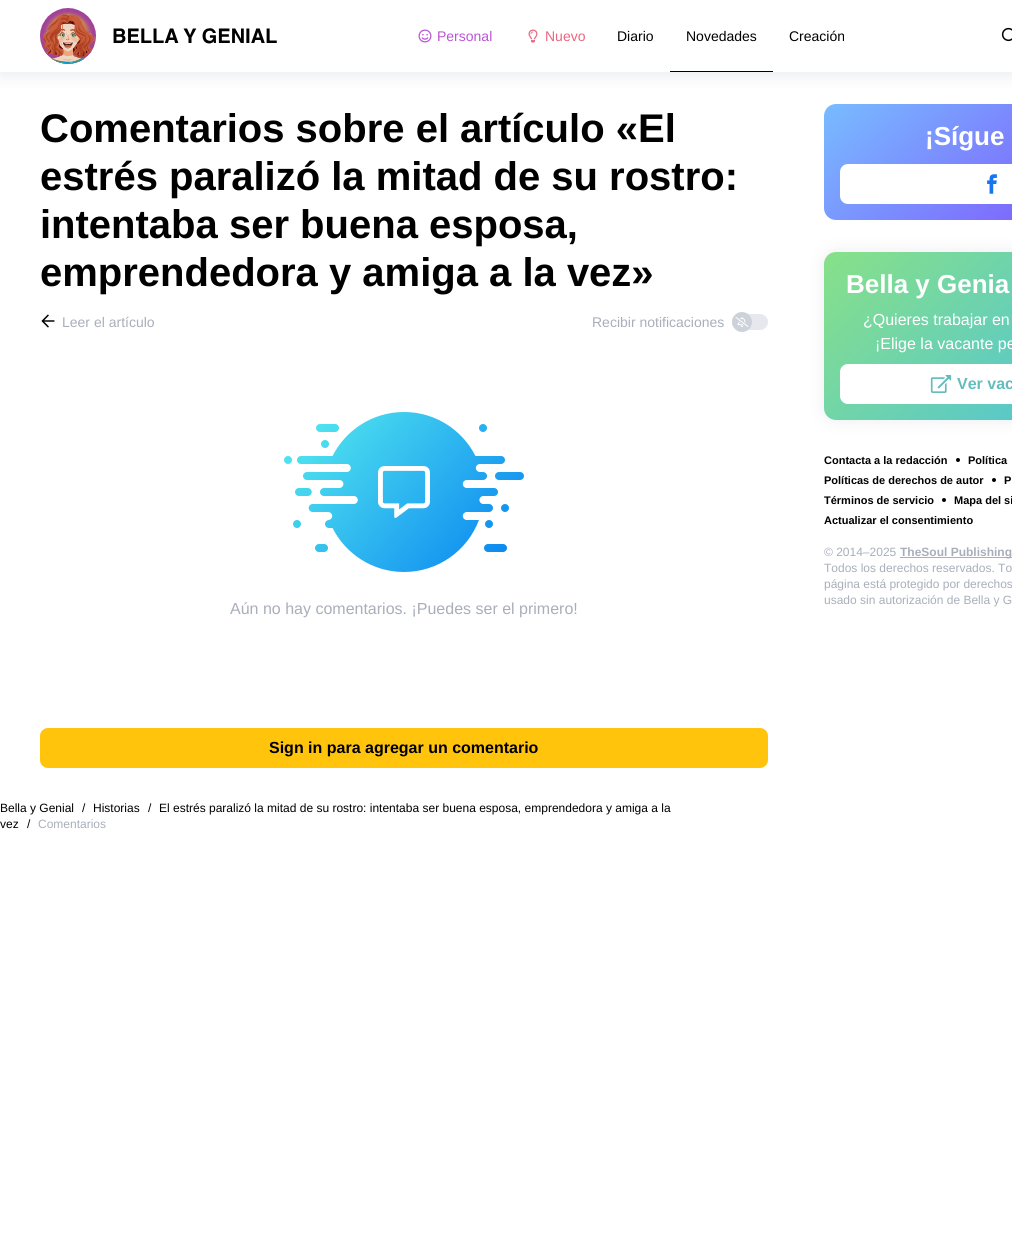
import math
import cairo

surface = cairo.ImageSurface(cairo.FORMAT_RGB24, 1012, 1246)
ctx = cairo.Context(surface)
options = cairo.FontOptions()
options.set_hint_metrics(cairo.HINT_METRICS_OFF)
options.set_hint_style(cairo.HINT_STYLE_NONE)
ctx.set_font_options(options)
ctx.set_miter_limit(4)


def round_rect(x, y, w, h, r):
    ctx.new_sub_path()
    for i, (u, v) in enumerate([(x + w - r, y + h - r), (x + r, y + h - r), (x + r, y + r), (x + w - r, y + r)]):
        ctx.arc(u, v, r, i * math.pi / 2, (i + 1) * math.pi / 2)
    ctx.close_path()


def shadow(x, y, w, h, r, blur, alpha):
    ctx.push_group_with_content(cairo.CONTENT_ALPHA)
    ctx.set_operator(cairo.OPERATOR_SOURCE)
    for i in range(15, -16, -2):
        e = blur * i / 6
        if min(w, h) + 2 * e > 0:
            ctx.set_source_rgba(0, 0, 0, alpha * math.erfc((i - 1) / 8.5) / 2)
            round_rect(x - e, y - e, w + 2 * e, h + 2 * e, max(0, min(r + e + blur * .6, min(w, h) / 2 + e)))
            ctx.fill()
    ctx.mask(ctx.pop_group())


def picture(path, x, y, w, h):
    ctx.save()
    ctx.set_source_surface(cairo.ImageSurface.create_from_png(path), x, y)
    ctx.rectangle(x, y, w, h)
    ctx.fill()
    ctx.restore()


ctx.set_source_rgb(1, 1, 1)
ctx.paint()
ctx.save()
ctx.rectangle(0, 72, 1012, 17)
ctx.clip()
ctx.set_source_rgb(0.804, 0.82, 0.855)
shadow(0, 4, 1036, 72, 0, 8, 0.4)
ctx.restore()
picture("img1.png", 40, 8, 237, 56)
picture("img2.png", 418, 29, 14, 14)
ctx.select_font_face("Liberation Sans")
ctx.set_font_size(14)
ctx.set_source_rgb(0.729, 0.333, 0.827)
ctx.move_to(437, 41)
ctx.show_text("Personal")
picture("img3.png", 528, 29, 10, 14)
ctx.set_source_rgb(0.918, 0.4, 0.502)
ctx.move_to(545, 41)
ctx.show_text("Nuevo")
ctx.set_source_rgb(0, 0, 0)
ctx.move_to(617, 41)
ctx.show_text("Diario")
ctx.rectangle(670, 71, 103, 1)
ctx.fill()
ctx.move_to(686, 41)
ctx.show_text("Novedades")
ctx.move_to(789, 41)
ctx.show_text("Creación")
picture("img4.png", 1001, 27, 11, 15)
ctx.select_font_face("Liberation Sans", cairo.FONT_SLANT_NORMAL, cairo.FONT_WEIGHT_BOLD)
ctx.set_font_size(40)
ctx.move_to(40, 142)
ctx.show_text("Comentarios sobre el artículo «El")
ctx.move_to(40, 190)
ctx.show_text("estrés paralizó la mitad de su rostro:")
ctx.move_to(40, 238)
ctx.show_text("intentaba ser buena esposa,")
ctx.move_to(40, 286)
ctx.show_text("emprendedora y amiga a la vez»")
picture("img5.png", 41, 314, 14, 14)
ctx.select_font_face("Liberation Sans")
ctx.set_font_size(14)
ctx.set_source_rgb(0.663, 0.682, 0.729)
ctx.move_to(62, 327)
ctx.show_text("Leer el artículo")
ctx.move_to(592, 327)
ctx.show_text("Recibir notificaciones")
ctx.set_source_rgb(0.902, 0.91, 0.929)
round_rect(732, 314, 36, 16, 8)
ctx.fill()
ctx.set_source_rgb(0.804, 0.82, 0.855)
ctx.arc(742, 322, 10, 0, 2 * math.pi)
ctx.fill()
picture("img6.png", 735, 317, 14, 10)
picture("img7.png", 284, 412, 240, 160)
ctx.set_font_size(16)
ctx.set_source_rgb(0.663, 0.682, 0.729)
ctx.move_to(230, 614)
ctx.show_text("Aún no hay comentarios. ¡Puedes ser el primero!")
ctx.set_source_rgb(1, 0.769, 0.043)
round_rect(40, 728, 728, 40, 8)
ctx.fill()
ctx.select_font_face("Liberation Sans", cairo.FONT_SLANT_NORMAL, cairo.FONT_WEIGHT_BOLD)
ctx.set_source_rgb(0, 0, 0)
ctx.move_to(269, 753)
ctx.show_text("Sign in para agregar un comentario")
gradient = cairo.LinearGradient(888, 46, 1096, 278)
gradient.add_color_stop_rgba(0, 0.471, 0.737, 1, 1)
gradient.add_color_stop_rgba(1, 0.502, 0.271, 0.992, 1)
ctx.set_source(gradient)
round_rect(824, 104, 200, 116, 12)
ctx.fill()
ctx.set_font_size(26)
ctx.set_source_rgb(1, 1, 1)
ctx.move_to(925, 145)
ctx.show_text("¡Sígue")
round_rect(840, 164, 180, 40, 8)
ctx.fill()
picture("img8.png", 987, 174, 10, 20)
ctx.set_source_rgb(0.804, 0.82, 0.855)
shadow(824, 252, 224, 168, 12, 8, 0.4)
gradient = cairo.LinearGradient(867, 209, 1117, 463)
gradient.add_color_stop_rgba(0, 0.533, 0.882, 0.533, 1)
gradient.add_color_stop_rgba(1, 0.278, 0.745, 0.89, 1)
ctx.set_source(gradient)
round_rect(824, 252, 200, 168, 12)
ctx.fill()
ctx.set_source_rgb(1, 1, 1)
ctx.move_to(846, 293)
ctx.show_text("Bella y Genia")
ctx.select_font_face("Liberation Sans")
ctx.set_font_size(16)
ctx.move_to(863, 325)
ctx.show_text("¿Quieres trabajar en")
ctx.move_to(875, 349)
ctx.show_text("¡Elige la vacante pe")
round_rect(840, 364, 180, 40, 8)
ctx.fill()
picture("img9.png", 930, 375, 22, 18)
ctx.select_font_face("Liberation Sans", cairo.FONT_SLANT_NORMAL, cairo.FONT_WEIGHT_BOLD)
ctx.set_source_rgb(0.396, 0.737, 0.737)
ctx.move_to(957, 389)
ctx.show_text("Ver vac")
ctx.set_font_size(11)
ctx.set_source_rgb(0, 0, 0)
ctx.move_to(824, 464)
ctx.show_text("Contacta a la redacción")
ctx.new_path()
ctx.arc(958, 460, 2, 0, 2 * math.pi)
ctx.fill()
ctx.move_to(968, 464)
ctx.show_text("Política")
ctx.move_to(824, 484)
ctx.show_text("Políticas de derechos de autor")
ctx.new_path()
ctx.arc(994, 480, 2, 0, 2 * math.pi)
ctx.fill()
ctx.move_to(1004, 484)
ctx.show_text("P")
ctx.move_to(824, 504)
ctx.show_text("Términos de servicio")
ctx.new_path()
ctx.arc(944, 500, 2, 0, 2 * math.pi)
ctx.fill()
ctx.move_to(954, 504)
ctx.show_text("Mapa del si")
ctx.move_to(824, 524)
ctx.show_text("Actualizar el consentimiento")
ctx.select_font_face("Liberation Sans")
ctx.set_font_size(12)
ctx.set_source_rgb(0.663, 0.682, 0.729)
ctx.move_to(824, 556)
ctx.show_text("© 2014–2025")
ctx.rectangle(900, 557, 112, 1)
ctx.fill()
ctx.select_font_face("Liberation Sans", cairo.FONT_SLANT_NORMAL, cairo.FONT_WEIGHT_BOLD)
ctx.move_to(900, 556)
ctx.show_text("TheSoul Publishing")
ctx.select_font_face("Liberation Sans")
ctx.move_to(824, 572)
ctx.show_text("Todos los derechos reservados. To")
ctx.move_to(824, 588)
ctx.show_text("página está protegido por derechos")
ctx.move_to(824, 604)
ctx.show_text("usado sin autorización de Bella y G")
ctx.set_source_rgb(0, 0, 0)
ctx.move_to(0, 812)
ctx.show_text("Bella y Genial")
ctx.move_to(82, 812)
ctx.show_text("/")
ctx.move_to(93, 812)
ctx.show_text("Historias")
ctx.move_to(148, 812)
ctx.show_text("/")
ctx.move_to(159, 812)
ctx.show_text("El estrés paralizó la mitad de su rostro: intentaba ser buena esposa, emprendedora y amiga a la")
ctx.move_to(0, 828)
ctx.show_text("vez")
ctx.move_to(27, 828)
ctx.show_text("/")
ctx.set_source_rgb(0.663, 0.682, 0.729)
ctx.move_to(38, 828)
ctx.show_text("Comentarios")
surface.write_to_png("page.png")
